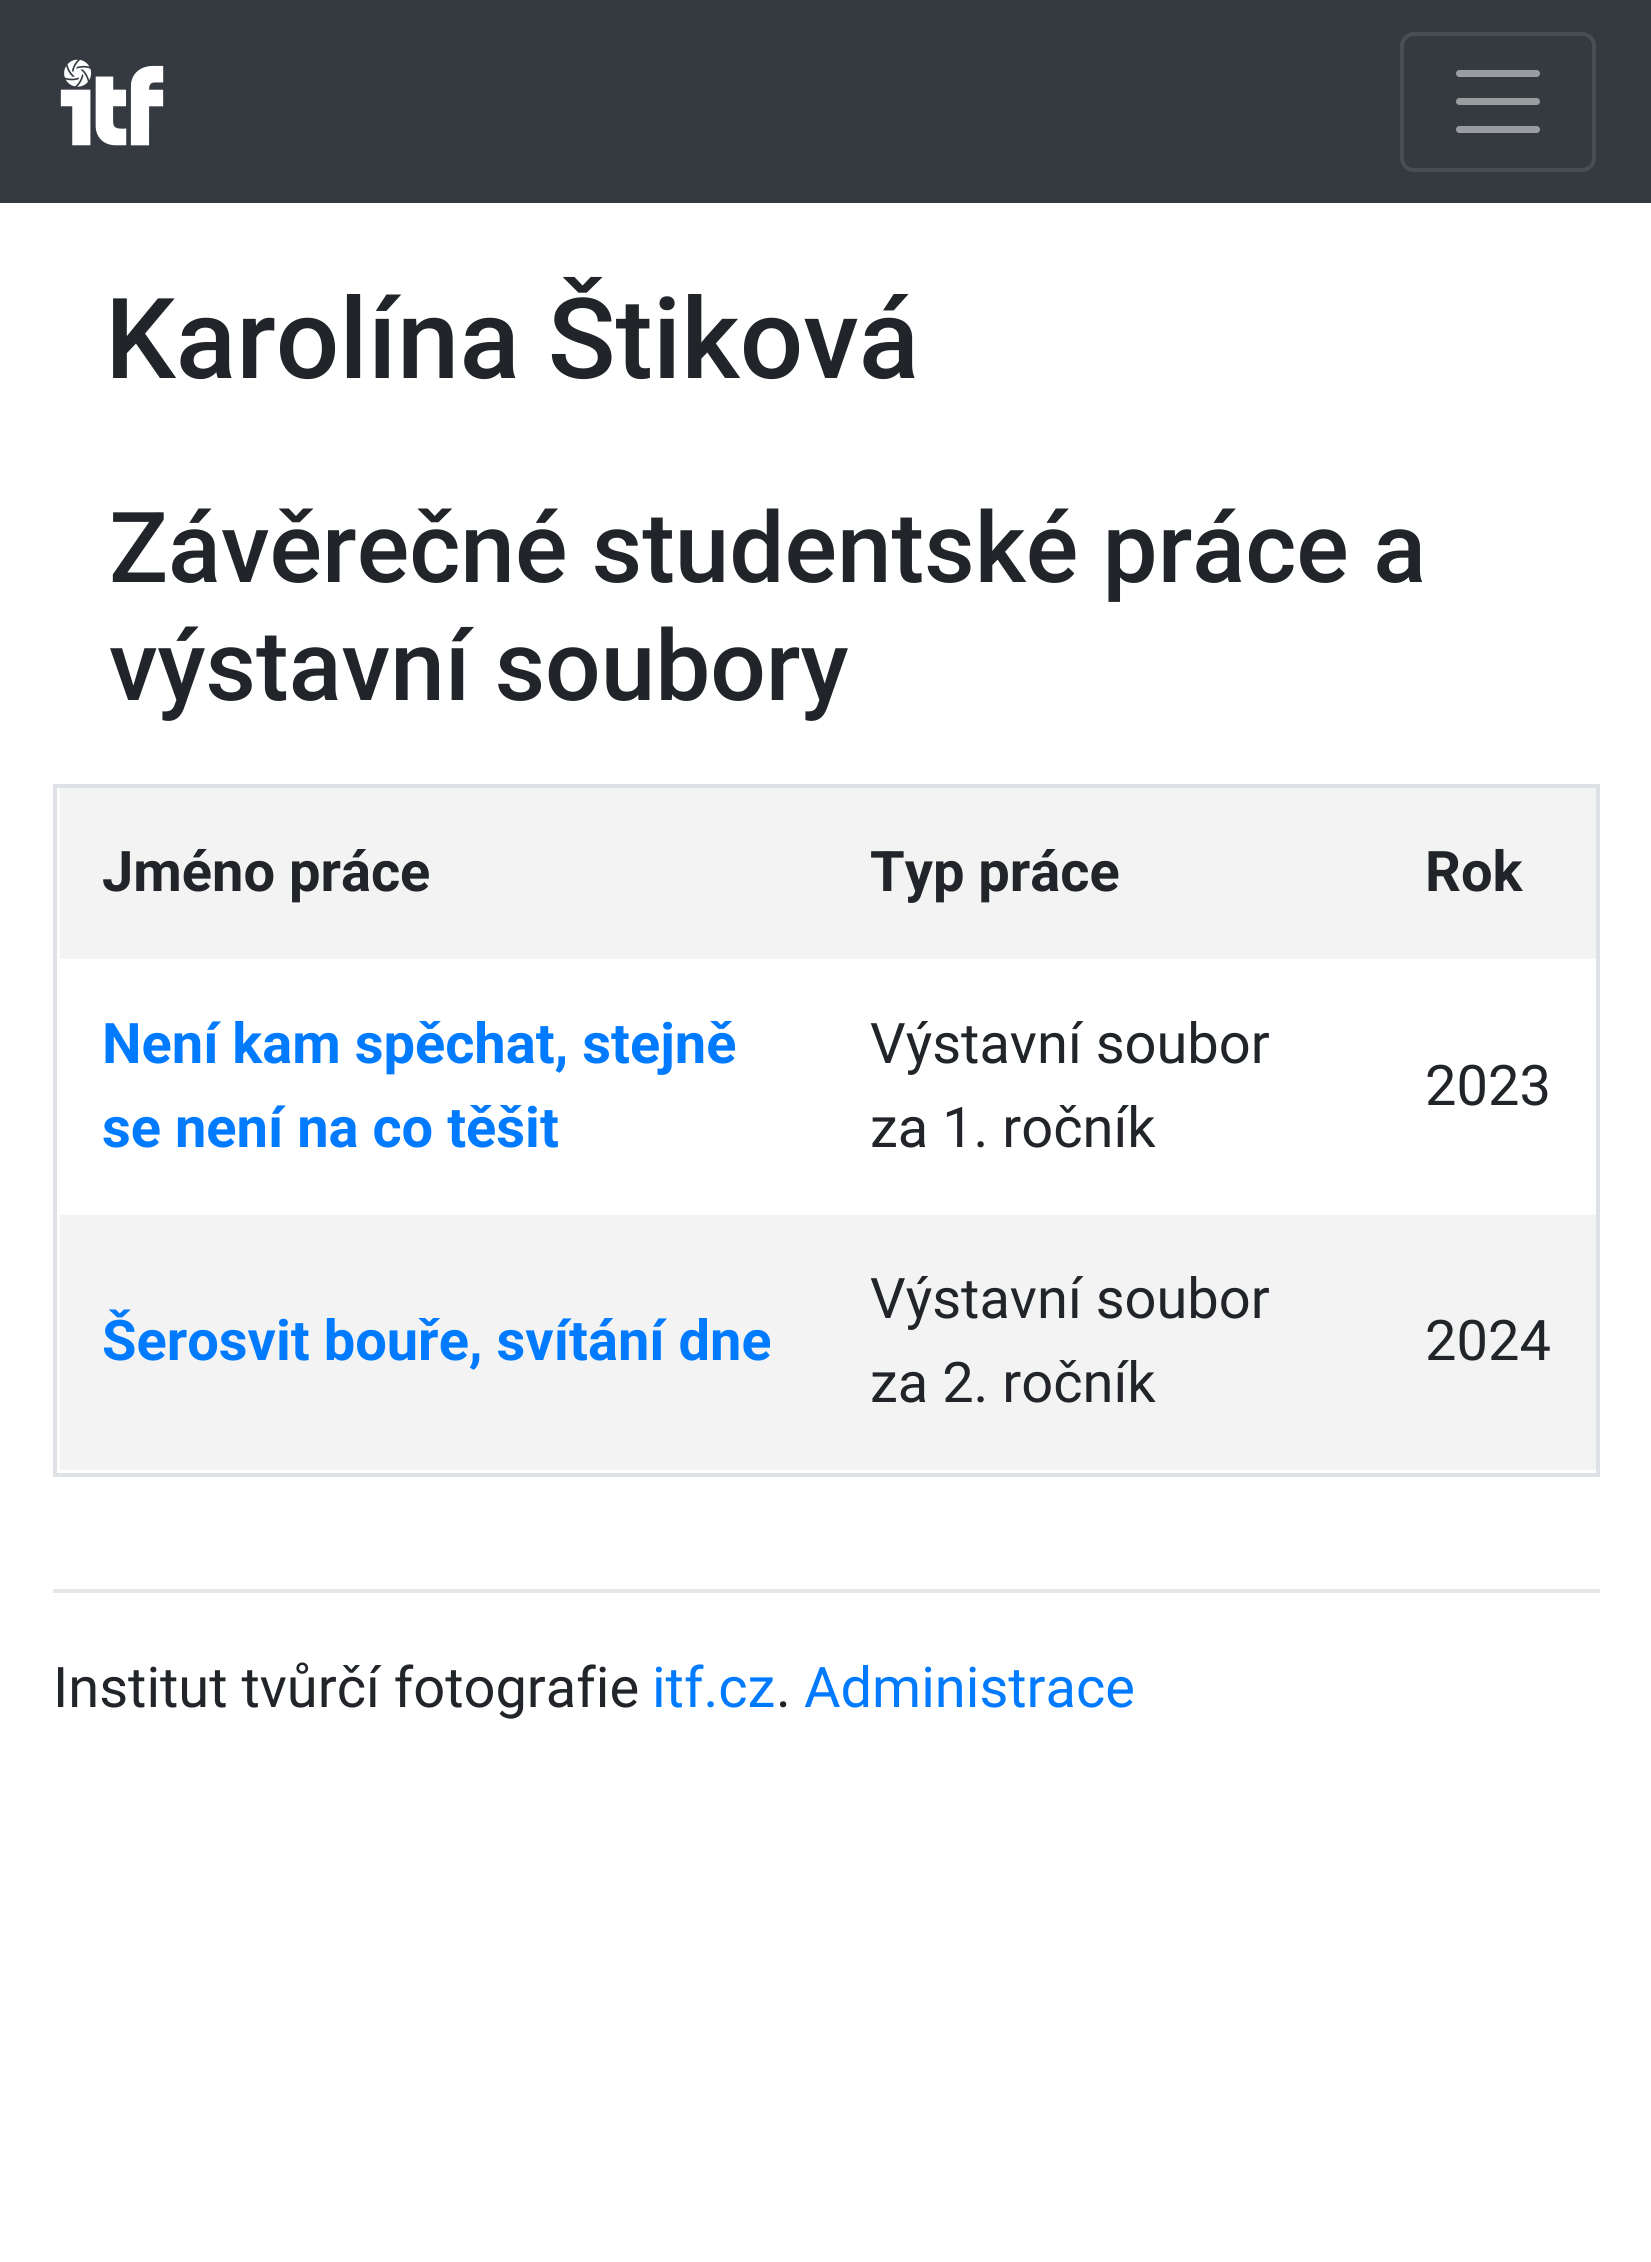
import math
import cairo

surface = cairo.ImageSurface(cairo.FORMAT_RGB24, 1651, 2262)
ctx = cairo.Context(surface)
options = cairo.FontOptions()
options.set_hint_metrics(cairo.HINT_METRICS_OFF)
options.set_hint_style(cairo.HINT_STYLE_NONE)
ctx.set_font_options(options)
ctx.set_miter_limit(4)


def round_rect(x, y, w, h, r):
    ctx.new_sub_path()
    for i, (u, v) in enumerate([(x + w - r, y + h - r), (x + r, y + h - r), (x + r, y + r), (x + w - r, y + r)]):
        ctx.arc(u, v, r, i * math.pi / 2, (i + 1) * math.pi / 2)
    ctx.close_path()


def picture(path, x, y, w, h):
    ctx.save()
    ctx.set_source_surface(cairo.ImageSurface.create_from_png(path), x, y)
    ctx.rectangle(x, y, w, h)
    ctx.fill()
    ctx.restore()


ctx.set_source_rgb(1, 1, 1)
ctx.paint()
ctx.set_source_rgb(0.204, 0.227, 0.251)
ctx.rectangle(0, 0, 1651, 203)
ctx.fill()
picture("img1.png", 60, 59, 104, 87)
round_rect(1402, 34, 192, 136, 12)
ctx.set_source_rgb(0.282, 0.306, 0.325)
ctx.set_line_width(4)
ctx.stroke()
ctx.new_path()
ctx.move_to(1459.5, 73.5)
ctx.line_to(1536.5, 73.5)
ctx.move_to(1459.5, 101.5)
ctx.line_to(1536.5, 101.5)
ctx.move_to(1459.5, 129.5)
ctx.line_to(1536.5, 129.5)
ctx.set_source_rgb(0.604, 0.616, 0.627)
ctx.set_line_width(7)
ctx.set_line_cap(cairo.LINE_CAP_ROUND)
ctx.stroke()
ctx.select_font_face("Roboto Medium")
ctx.set_font_size(112)
ctx.set_source_rgb(0.129, 0.145, 0.161)
ctx.move_to(105, 378)
ctx.show_text("Karolína Štiková")
ctx.set_font_size(98)
ctx.move_to(109, 582)
ctx.show_text("Závěrečné studentské práce a")
ctx.move_to(109, 700)
ctx.show_text("výstavní soubory")
ctx.rectangle(55, 786, 1543, 689)
ctx.set_source_rgb(0.871, 0.886, 0.902)
ctx.set_line_width(4)
ctx.set_line_cap(cairo.LINE_CAP_BUTT)
ctx.stroke()
ctx.set_source_rgb(0.953, 0.953, 0.953)
ctx.rectangle(60, 788, 1536, 171)
ctx.fill()
ctx.select_font_face("Roboto", cairo.FONT_SLANT_NORMAL, cairo.FONT_WEIGHT_BOLD)
ctx.set_font_size(56)
ctx.set_source_rgb(0.129, 0.145, 0.161)
ctx.move_to(102, 891)
ctx.show_text("Jméno práce")
ctx.move_to(870, 891)
ctx.show_text("Typ práce")
ctx.move_to(1425, 891)
ctx.show_text("Rok")
ctx.set_source_rgb(0, 0.482, 1)
ctx.move_to(102, 1063)
ctx.show_text("Není kam spěchat, stejně")
ctx.move_to(102, 1147)
ctx.show_text("se není na co těšit")
ctx.select_font_face("Roboto")
ctx.set_source_rgb(0.129, 0.145, 0.161)
ctx.move_to(870, 1063)
ctx.show_text("Výstavní soubor")
ctx.move_to(870, 1147)
ctx.show_text("za 1. ročník")
ctx.move_to(1425, 1105)
ctx.show_text("2023")
ctx.set_source_rgb(0.953, 0.953, 0.953)
ctx.rectangle(60, 1215, 1536, 255)
ctx.fill()
ctx.select_font_face("Roboto", cairo.FONT_SLANT_NORMAL, cairo.FONT_WEIGHT_BOLD)
ctx.set_source_rgb(0, 0.482, 1)
ctx.move_to(102, 1360)
ctx.show_text("Šerosvit bouře, svítání dne")
ctx.select_font_face("Roboto")
ctx.set_source_rgb(0.129, 0.145, 0.161)
ctx.move_to(870, 1318)
ctx.show_text("Výstavní soubor")
ctx.move_to(870, 1402)
ctx.show_text("za 2. ročník")
ctx.move_to(1425, 1360)
ctx.show_text("2024")
ctx.set_source_rgb(0.902, 0.902, 0.902)
ctx.rectangle(53, 1589, 1547, 4)
ctx.fill()
ctx.set_source_rgb(0.129, 0.145, 0.161)
ctx.move_to(53, 1707)
ctx.show_text("Institut tvůrčí fotografie")
ctx.set_source_rgb(0, 0.482, 1)
ctx.move_to(652, 1707)
ctx.show_text("itf.cz")
ctx.set_source_rgb(0.129, 0.145, 0.161)
ctx.move_to(776, 1707)
ctx.show_text(".")
ctx.set_source_rgb(0, 0.482, 1)
ctx.move_to(804, 1707)
ctx.show_text("Administrace")
surface.write_to_png("page.png")
